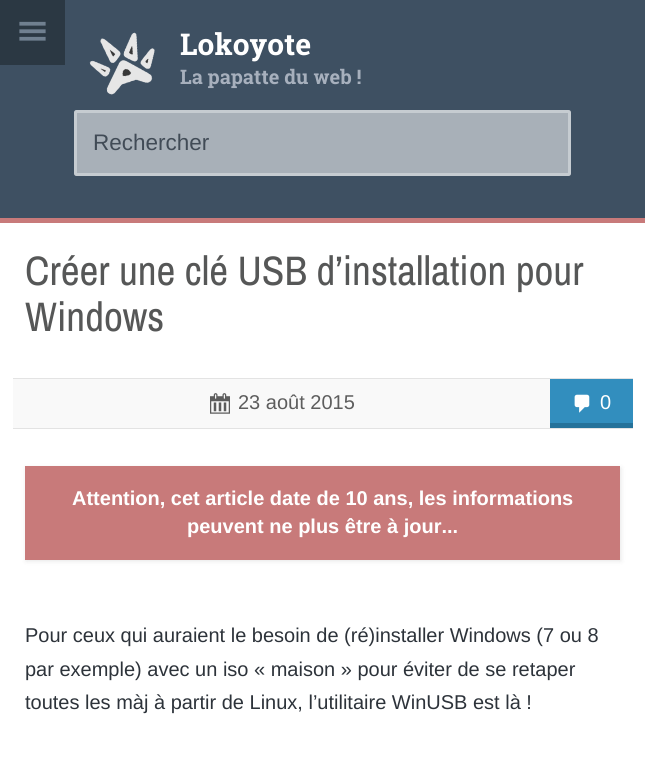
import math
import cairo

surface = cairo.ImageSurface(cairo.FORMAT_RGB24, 645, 761)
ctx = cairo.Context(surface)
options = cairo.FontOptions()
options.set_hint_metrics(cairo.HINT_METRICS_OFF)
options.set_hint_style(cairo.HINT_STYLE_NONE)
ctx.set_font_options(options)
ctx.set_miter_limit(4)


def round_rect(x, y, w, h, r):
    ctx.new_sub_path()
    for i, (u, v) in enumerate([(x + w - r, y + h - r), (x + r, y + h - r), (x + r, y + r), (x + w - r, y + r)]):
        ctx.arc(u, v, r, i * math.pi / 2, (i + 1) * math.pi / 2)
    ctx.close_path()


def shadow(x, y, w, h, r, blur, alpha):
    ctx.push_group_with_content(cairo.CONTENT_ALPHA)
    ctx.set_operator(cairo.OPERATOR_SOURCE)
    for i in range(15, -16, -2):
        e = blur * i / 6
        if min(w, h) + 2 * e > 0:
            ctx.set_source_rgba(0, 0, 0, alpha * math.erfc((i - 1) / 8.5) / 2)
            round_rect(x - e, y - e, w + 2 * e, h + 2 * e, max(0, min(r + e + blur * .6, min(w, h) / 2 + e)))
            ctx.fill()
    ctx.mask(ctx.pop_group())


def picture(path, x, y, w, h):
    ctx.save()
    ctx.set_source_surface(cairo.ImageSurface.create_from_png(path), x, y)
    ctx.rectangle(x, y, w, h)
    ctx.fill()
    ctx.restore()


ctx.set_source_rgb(0.243, 0.314, 0.384)
ctx.paint()
ctx.set_source_rgb(0.169, 0.22, 0.263)
ctx.rectangle(0, 0, 65, 65)
ctx.fill()
picture("img1.png", 19, 21, 27, 20)
picture("img2.png", 89, 32, 66, 63)
ctx.select_font_face("Roboto Slab", cairo.FONT_SLANT_NORMAL, cairo.FONT_WEIGHT_BOLD)
ctx.set_font_size(30)
ctx.set_source_rgb(1, 1, 1)
ctx.move_to(180, 55)
ctx.show_text("Lokoyote")
ctx.set_font_size(20)
ctx.set_source_rgb(0.655, 0.69, 0.741)
ctx.move_to(180, 84)
ctx.show_text("La papatte du web !")
ctx.set_source_rgb(0.659, 0.69, 0.722)
round_rect(74, 110, 497, 66, 2.5)
ctx.fill()
round_rect(75.5, 111.5, 494, 63, 1)
ctx.set_source_rgba(1, 1, 1, 0.35)
ctx.set_line_width(3)
ctx.stroke()
ctx.select_font_face("Liberation Sans")
ctx.set_font_size(22.5)
ctx.set_source_rgb(0.255, 0.294, 0.337)
ctx.move_to(93, 150)
ctx.show_text("Rechercher")
ctx.set_source_rgb(1, 1, 1)
ctx.rectangle(0, 223, 645, 538)
ctx.fill()
ctx.set_source_rgb(0.784, 0.478, 0.478)
ctx.rectangle(0, 218, 645, 5)
ctx.fill()
ctx.select_font_face("Archivo Narrow")
ctx.set_font_size(41.25)
ctx.set_source_rgb(0.337, 0.341, 0.341)
ctx.move_to(25, 285)
ctx.show_text("Créer une clé USB d’installation pour")
ctx.move_to(25, 331)
ctx.show_text("Windows")
ctx.set_source_rgb(0.973, 0.973, 0.973)
ctx.rectangle(13, 379, 537, 49)
ctx.fill()
ctx.set_source_rgb(0.89, 0.89, 0.89)
ctx.rectangle(13, 378, 620, 1)
ctx.fill()
ctx.rectangle(13, 428, 620, 1)
ctx.fill()
picture("img3.png", 210, 393, 20, 21)
ctx.select_font_face("Liberation Sans")
ctx.set_font_size(20)
ctx.set_source_rgb(0.365, 0.365, 0.365)
ctx.move_to(238, 409)
ctx.show_text("23 août 2015")
ctx.set_source_rgb(0.196, 0.557, 0.745)
ctx.rectangle(550, 379, 83, 44)
ctx.fill()
ctx.set_source_rgb(0.145, 0.447, 0.604)
ctx.rectangle(550, 423, 83, 5)
ctx.fill()
picture("img4.png", 574, 394, 16, 19)
ctx.set_source_rgb(1, 1, 1)
ctx.move_to(600, 409)
ctx.show_text("0")
ctx.set_source_rgb(0, 0, 0)
shadow(26, 468, 595, 93, 0, 2.5, 0.1)
ctx.set_source_rgb(0.784, 0.478, 0.478)
ctx.rectangle(25, 466, 595, 94)
ctx.fill()
ctx.select_font_face("Liberation Sans", cairo.FONT_SLANT_NORMAL, cairo.FONT_WEIGHT_BOLD)
ctx.set_source_rgb(1, 1, 1)
ctx.move_to(72, 505)
ctx.show_text("Attention, cet article date de 10 ans, les informations")
ctx.move_to(187, 533)
ctx.show_text("peuvent ne plus être à jour...")
ctx.select_font_face("Liberation Sans")
ctx.set_source_rgb(0.176, 0.2, 0.227)
ctx.move_to(25, 642)
ctx.show_text("Pour ceux qui auraient le besoin de (ré)installer Windows (7 ou 8")
ctx.move_to(25, 676)
ctx.show_text("par exemple) avec un iso « maison » pour éviter de se retaper")
ctx.move_to(25, 709)
ctx.show_text("toutes les màj à partir de Linux, l’utilitaire WinUSB est là !")
surface.write_to_png("page.png")
